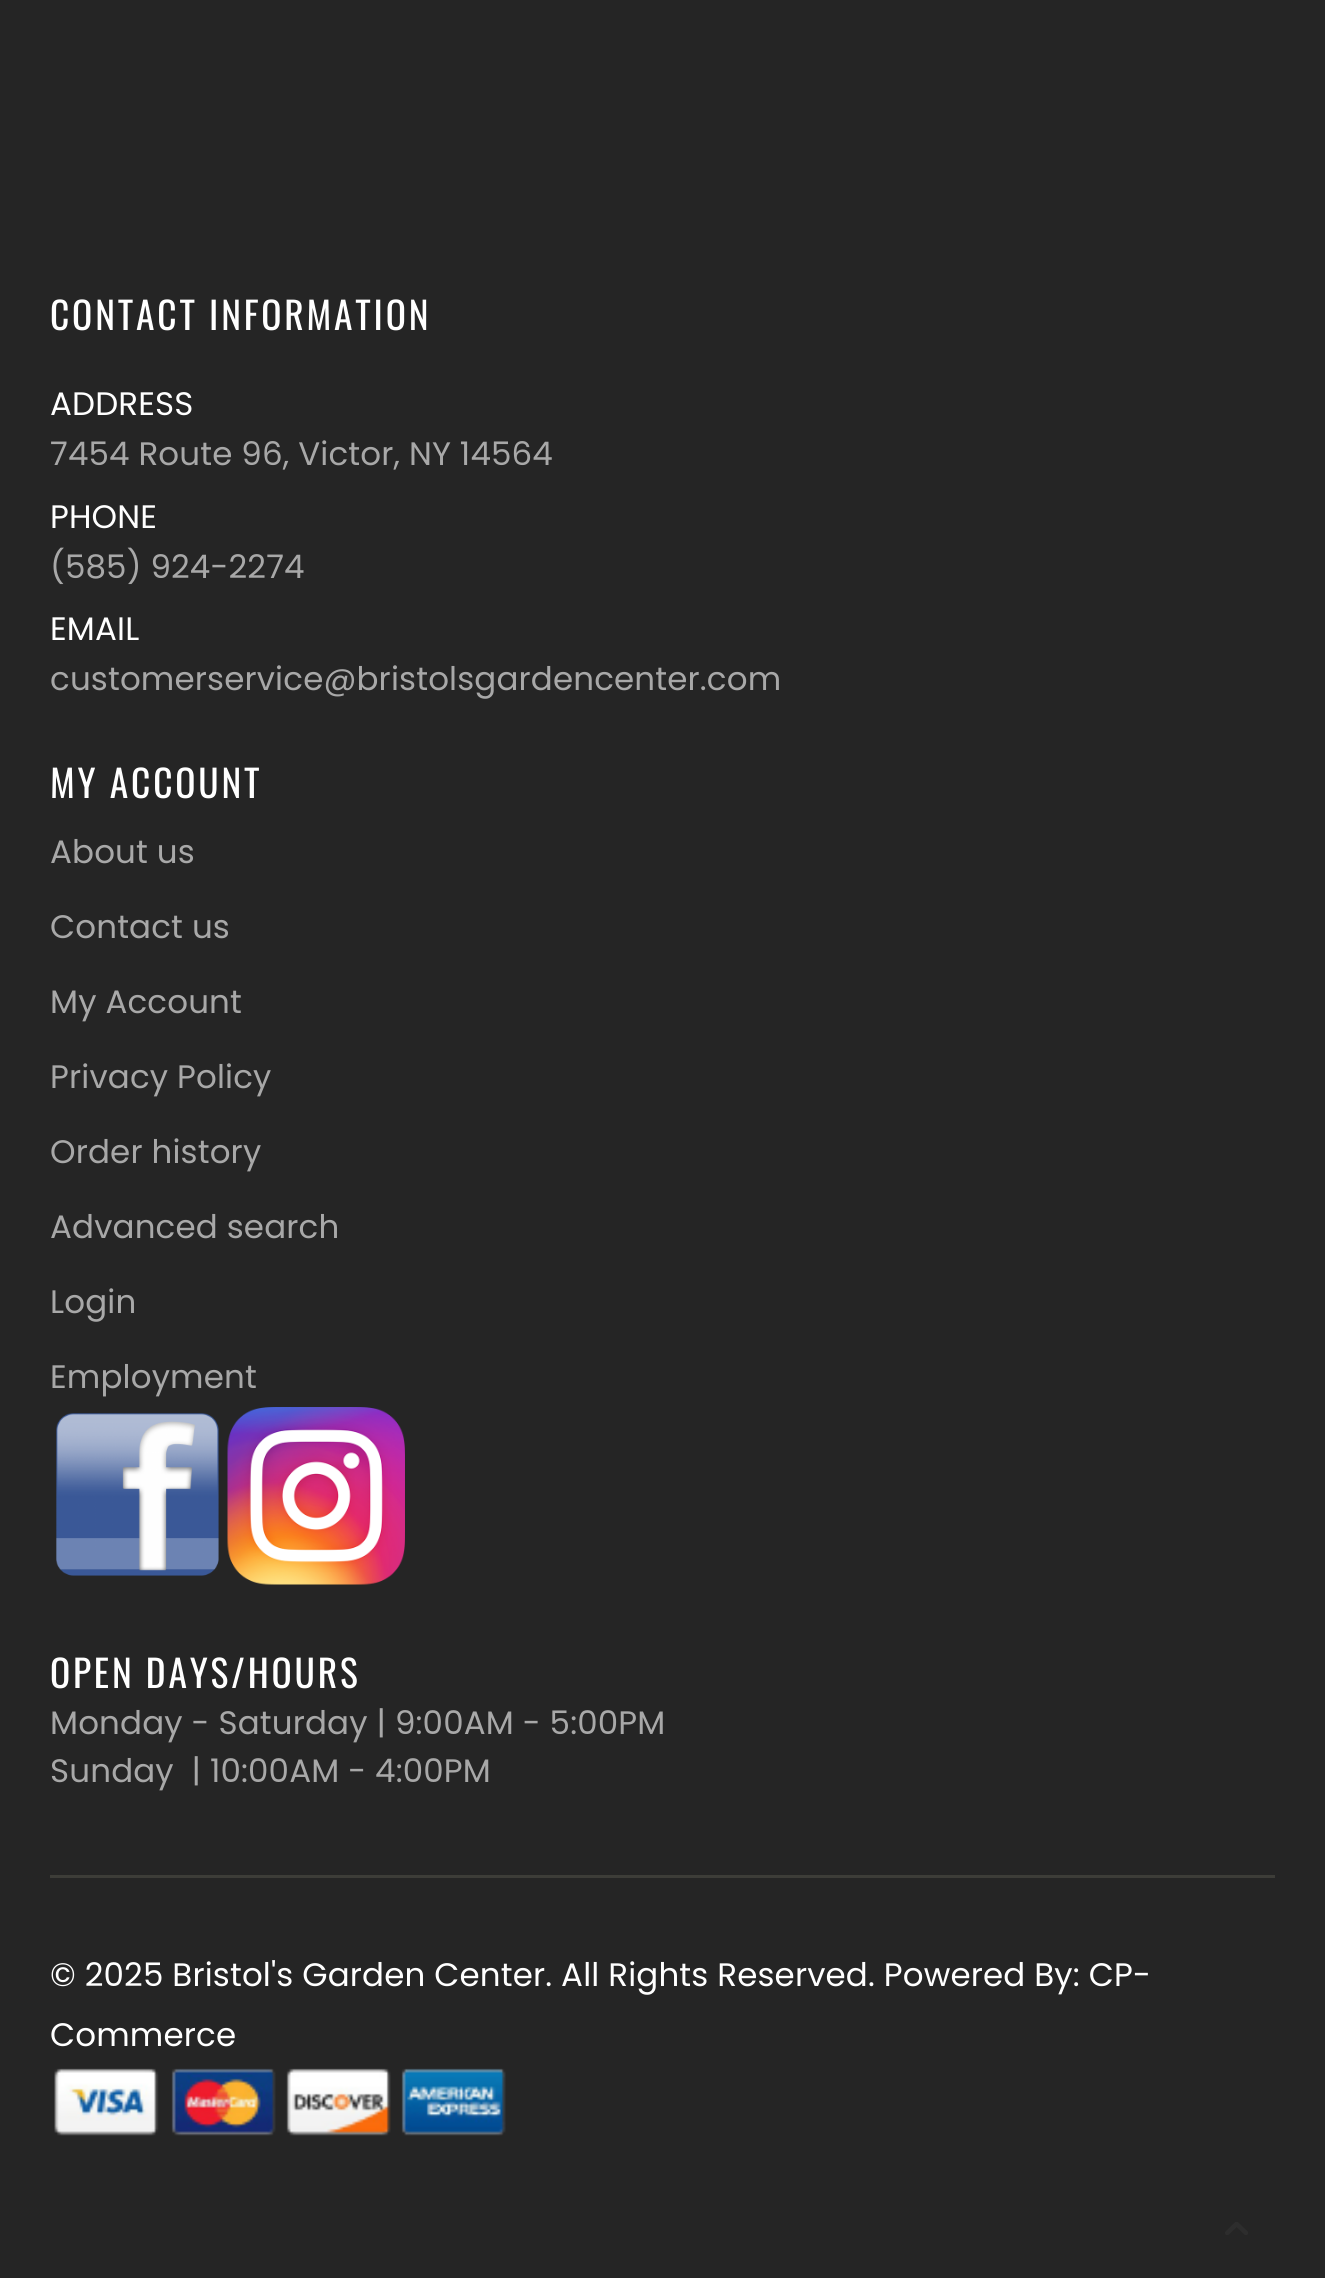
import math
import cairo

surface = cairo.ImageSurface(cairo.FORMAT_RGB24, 1325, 2278)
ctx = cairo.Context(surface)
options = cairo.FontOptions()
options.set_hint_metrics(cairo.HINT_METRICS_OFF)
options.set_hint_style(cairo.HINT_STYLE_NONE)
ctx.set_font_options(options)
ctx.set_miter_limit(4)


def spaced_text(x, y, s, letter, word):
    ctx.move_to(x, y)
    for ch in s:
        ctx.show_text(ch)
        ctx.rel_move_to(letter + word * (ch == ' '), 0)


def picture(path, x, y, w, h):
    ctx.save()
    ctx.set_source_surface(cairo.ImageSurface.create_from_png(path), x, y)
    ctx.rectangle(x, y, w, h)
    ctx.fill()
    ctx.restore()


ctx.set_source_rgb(0.145, 0.145, 0.145)
ctx.paint()
ctx.select_font_face("Oswald")
ctx.set_font_size(37.5)
ctx.set_source_rgb(1, 1, 1)
spaced_text(50, 330, "CONTACT INFORMATION", 2.8, 0)
ctx.select_font_face("Poppins")
ctx.set_font_size(32.5)
spaced_text(50, 415, "ADDRESS", 0.15, 0)
ctx.set_source_rgb(0.659, 0.659, 0.659)
spaced_text(50, 465, "7454 Route 96, Victor, NY 14564", 0.15, 0)
ctx.set_source_rgb(1, 1, 1)
spaced_text(50, 528, "PHONE", 0.15, 0)
ctx.set_source_rgb(0.659, 0.659, 0.659)
spaced_text(50, 578, "(585) 924-2274", 0.15, 0)
ctx.set_source_rgb(1, 1, 1)
spaced_text(50, 640, "EMAIL", 0.15, 0)
ctx.set_source_rgb(0.659, 0.659, 0.659)
spaced_text(50, 690, "customerservice@bristolsgardencenter.com", 0.15, 0)
ctx.select_font_face("Oswald")
ctx.set_font_size(37.5)
ctx.set_source_rgb(1, 1, 1)
spaced_text(50, 798, "MY ACCOUNT", 2.8, 0)
ctx.select_font_face("Poppins")
ctx.set_font_size(32.5)
ctx.set_source_rgb(0.659, 0.659, 0.659)
spaced_text(50, 863, "About us", 0.15, 0)
spaced_text(50, 938, "Contact us", 0.15, 0)
spaced_text(50, 1013, "My Account", 0.15, 0)
spaced_text(50, 1088, "Privacy Policy", 0.15, 0)
spaced_text(50, 1163, "Order history", 0.15, 0)
spaced_text(50, 1238, "Advanced search", 0.15, 0)
spaced_text(50, 1313, "Login", 0.15, 0)
spaced_text(50, 1388, "Employment", 0.15, 0)
picture("img1.png", 56, 1413, 163, 163)
picture("img2.png", 227, 1407, 178, 178)
ctx.select_font_face("Oswald")
ctx.set_font_size(37.5)
ctx.set_source_rgb(1, 1, 1)
spaced_text(50, 1688, "OPEN DAYS/HOURS", 2.8, 0)
ctx.select_font_face("Poppins")
ctx.set_font_size(32.5)
ctx.set_source_rgb(0.659, 0.659, 0.659)
spaced_text(50, 1734, "Monday - Saturday | 9:00AM - 5:00PM", 0.15, 0)
spaced_text(50, 1782, "Sunday  | 10:00AM - 4:00PM", 0.15, 0)
ctx.set_source_rgb(0.239, 0.239, 0.22)
ctx.rectangle(50, 1875, 1225, 3)
ctx.fill()
ctx.set_source_rgb(1, 1, 1)
spaced_text(50, 1986, "© 2025 Bristol's Garden Center. All Rights Reserved. Powered By: CP-", 0.15, 0)
spaced_text(50, 2046, "Commerce", 0.15, 0)
picture("img3.png", 54, 2068, 452, 68)
picture("img4.png", 1225, 2222, 23, 13)
surface.write_to_png("page.png")
